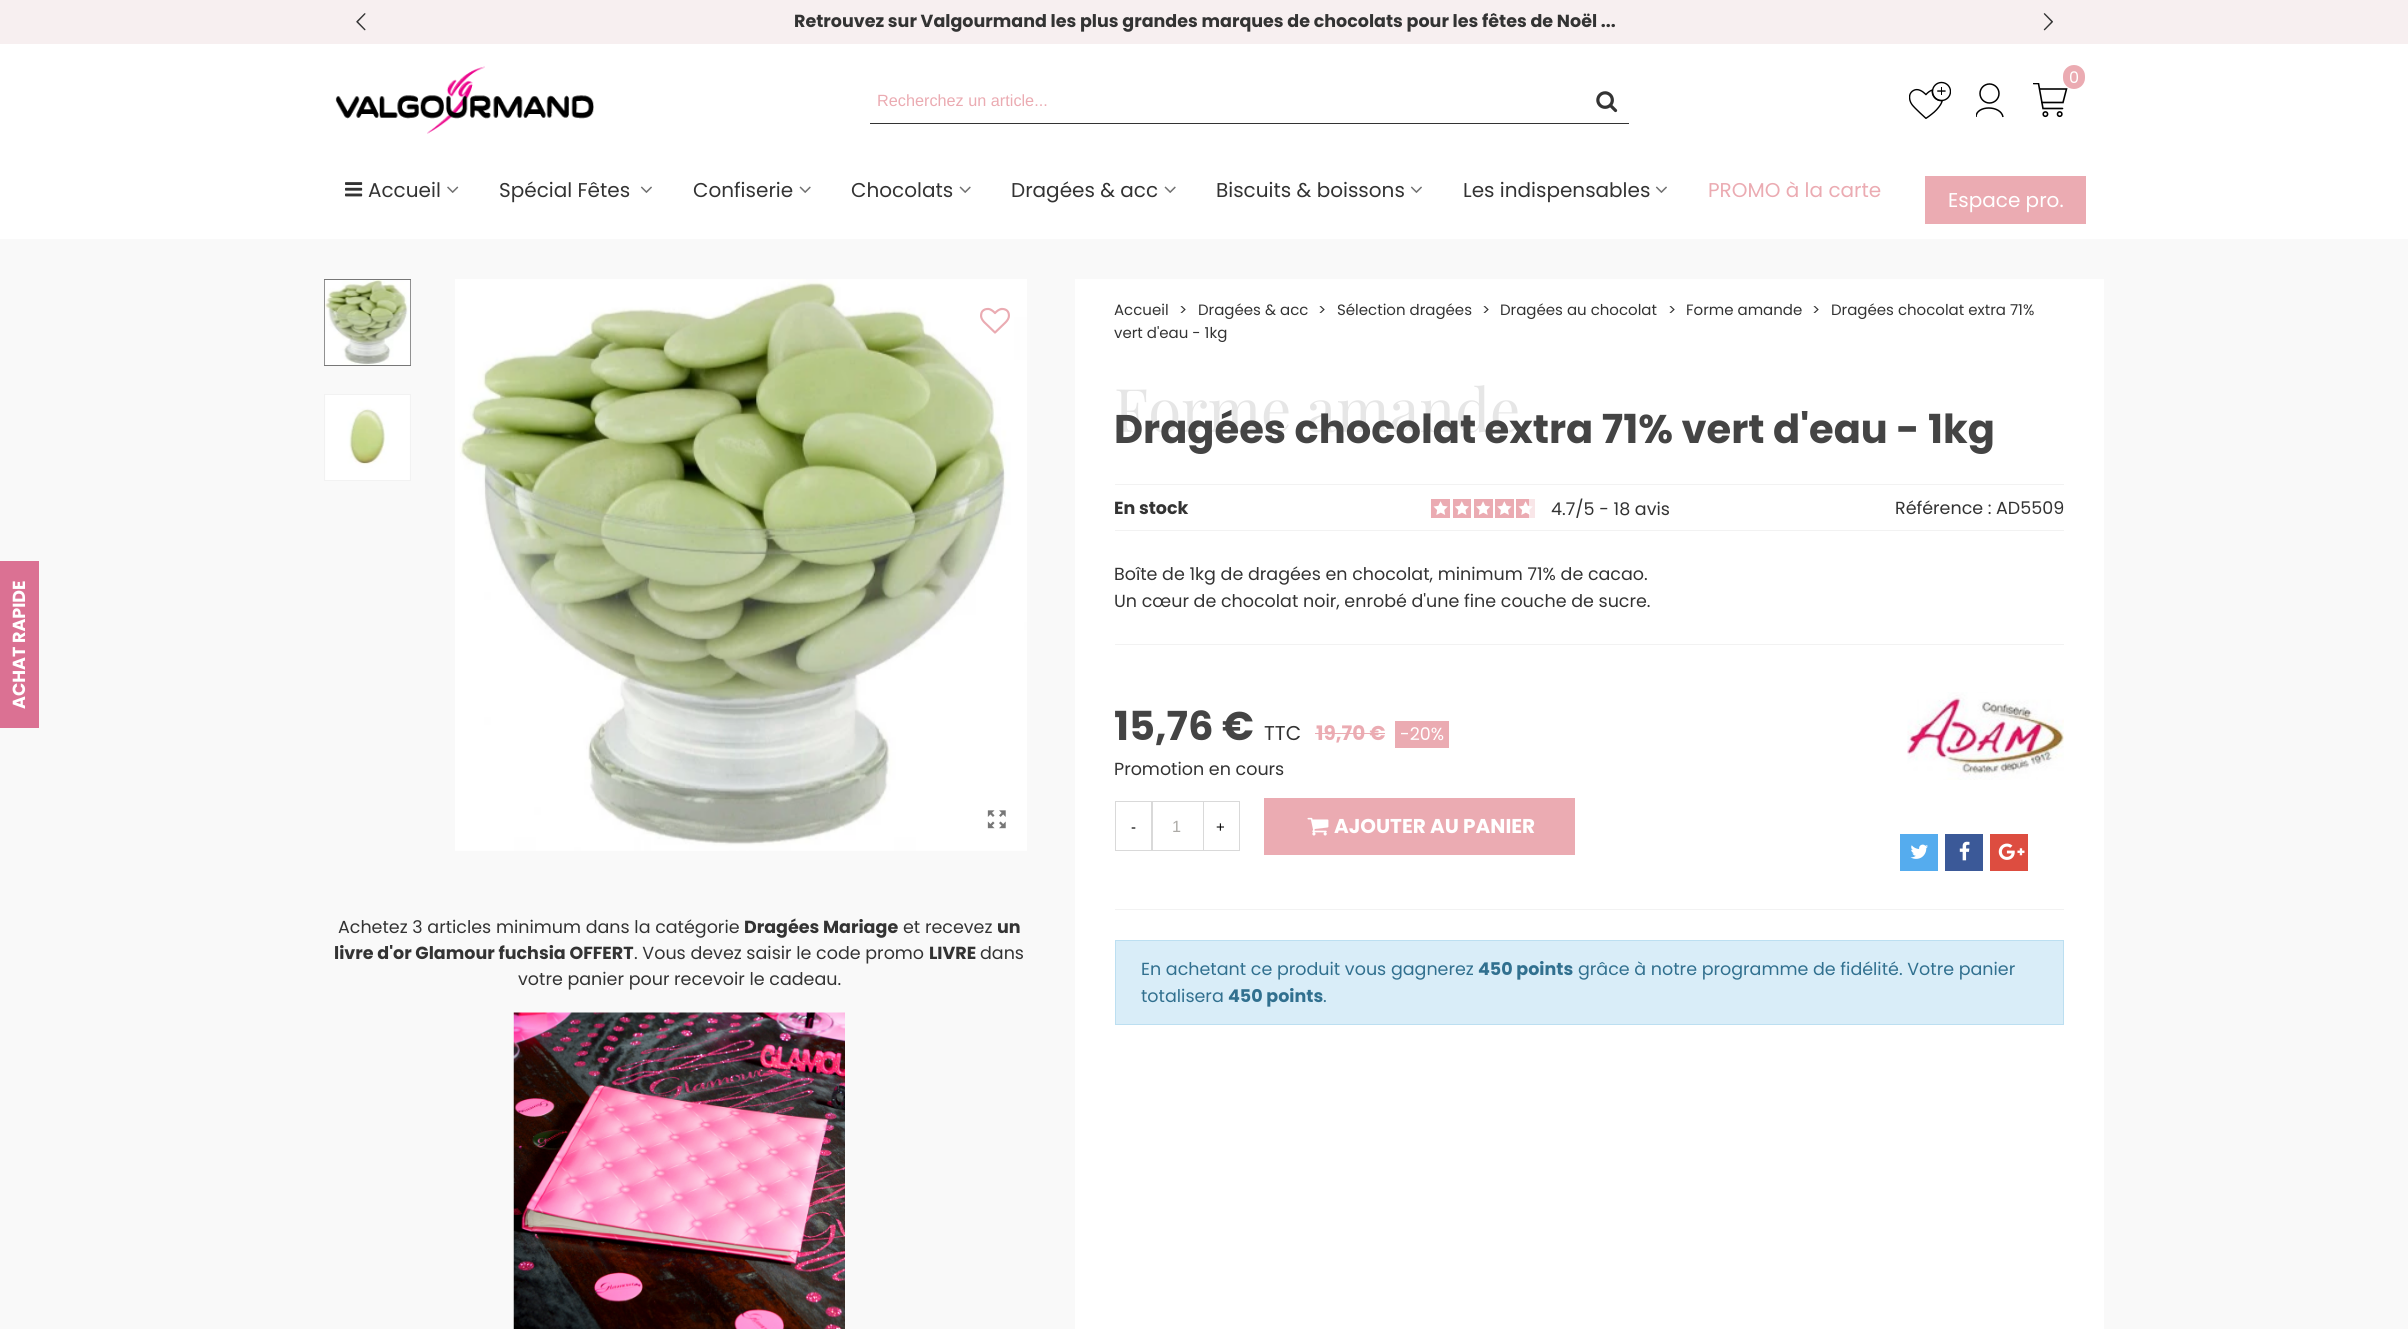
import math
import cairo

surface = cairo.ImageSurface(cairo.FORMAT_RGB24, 2408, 1329)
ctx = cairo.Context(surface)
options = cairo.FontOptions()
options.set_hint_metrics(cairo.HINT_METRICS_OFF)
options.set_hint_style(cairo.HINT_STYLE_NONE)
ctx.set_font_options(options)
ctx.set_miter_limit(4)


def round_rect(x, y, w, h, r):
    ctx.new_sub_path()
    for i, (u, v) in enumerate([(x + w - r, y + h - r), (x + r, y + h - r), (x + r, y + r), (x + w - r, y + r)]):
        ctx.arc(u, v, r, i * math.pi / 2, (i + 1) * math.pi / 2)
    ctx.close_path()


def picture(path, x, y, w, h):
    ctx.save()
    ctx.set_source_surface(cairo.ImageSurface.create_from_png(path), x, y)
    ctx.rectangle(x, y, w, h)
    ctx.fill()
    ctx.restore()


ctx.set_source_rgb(0.973, 0.973, 0.973)
ctx.paint()
ctx.set_source_rgb(1, 1, 1)
ctx.rectangle(0, 44, 2408, 195)
ctx.fill()
ctx.set_source_rgb(0.965, 0.937, 0.941)
ctx.rectangle(0, 0, 2408, 44)
ctx.fill()
picture("img1.png", 356, 13, 10, 18)
ctx.select_font_face("Poppins", cairo.FONT_SLANT_NORMAL, cairo.FONT_WEIGHT_BOLD)
ctx.set_font_size(17.5)
ctx.set_source_rgb(0.2, 0.2, 0.2)
ctx.move_to(794, 27)
ctx.show_text("Retrouvez sur Valgourmand les plus grandes marques de chocolats pour les fêtes de Noël ...")
picture("img2.png", 2043, 13, 10, 18)
picture("img3.png", 335, 66, 259, 68)
ctx.save()
ctx.rectangle(2033, 83, 35, 35)
ctx.clip()
ctx.new_path()
ctx.move_to(2033.5, 83.5)
ctx.line_to(2038.5, 83.5)
ctx.line_to(2043, 108.5)
ctx.line_to(2062.5, 108.5)
ctx.set_source_rgb(0, 0, 0)
ctx.set_line_width(1.6)
ctx.set_line_cap(cairo.LINE_CAP_ROUND)
ctx.stroke()
ctx.restore()
ctx.new_path()
ctx.move_to(2040, 89)
ctx.line_to(2066.5, 89)
ctx.line_to(2063, 102.5)
ctx.line_to(2042, 102.5)
ctx.set_source_rgb(0, 0, 0)
ctx.set_line_width(1.6)
ctx.set_line_cap(cairo.LINE_CAP_ROUND)
ctx.stroke()
ctx.set_source_rgb(0.918, 0.671, 0.698)
round_rect(2063, 65, 22, 24, 11)
ctx.fill()
ctx.select_font_face("Poppins")
ctx.set_font_size(16)
ctx.set_source_rgb(1, 1, 1)
ctx.move_to(2069, 83)
ctx.show_text("0")
ctx.new_path()
ctx.arc(2045.4, 114.1, 2.2, 0, 2 * math.pi)
ctx.set_source_rgb(0, 0, 0)
ctx.set_line_cap(cairo.LINE_CAP_BUTT)
ctx.stroke()
ctx.arc(2059.7, 114.1, 2.2, 0, 2 * math.pi)
ctx.stroke()
picture("img4.png", 1909, 81, 42, 38)
ctx.arc(1989.5, 93.5, 9.5, 0, 2 * math.pi)
ctx.set_line_width(1.5)
ctx.stroke()
ctx.save()
ctx.rectangle(1976, 83, 28, 35)
ctx.clip()
ctx.new_path()
ctx.move_to(2003, 117)
ctx.curve_to(2001, 105, 1976, 105, 1976, 117)
ctx.stroke()
ctx.restore()
ctx.set_source_rgb(0.859, 0.443, 0.576)
ctx.rectangle(0, 561, 39, 167)
ctx.fill()
ctx.select_font_face("Poppins", cairo.FONT_SLANT_NORMAL, cairo.FONT_WEIGHT_BOLD)
ctx.set_font_size(17.5)
ctx.set_source_rgb(1, 1, 1)
ctx.save()
ctx.translate(25, 709)
ctx.rotate(-90 * math.pi / 180)
ctx.move_to(0, 0)
ctx.show_text("ACHAT RAPIDE")
ctx.restore()
ctx.set_source_rgb(0.2, 0.2, 0.2)
ctx.rectangle(869, 123, 760, 1)
ctx.fill()
ctx.set_source_rgb(1, 1, 1)
ctx.rectangle(869, 123, 1, 1)
ctx.fill()
ctx.select_font_face("Liberation Sans")
ctx.set_font_size(16.25)
ctx.set_source_rgb(0.918, 0.671, 0.698)
ctx.move_to(877, 106)
ctx.show_text("Recherchez un article...")
picture("img5.png", 1596, 91, 22, 22)
picture("img6.png", 345, 182, 18, 15)
ctx.select_font_face("Poppins")
ctx.set_font_size(20)
ctx.set_source_rgb(0.2, 0.2, 0.2)
ctx.move_to(368, 197)
ctx.show_text("Accueil")
picture("img7.png", 447, 186, 12, 7)
ctx.move_to(499, 197)
ctx.show_text("Spécial Fêtes")
picture("img8.png", 640, 186, 12, 7)
ctx.move_to(693, 197)
ctx.show_text("Confiserie")
picture("img9.png", 799, 186, 12, 7)
ctx.move_to(851, 197)
ctx.show_text("Chocolats")
picture("img9.png", 959, 186, 12, 7)
ctx.move_to(1011, 197)
ctx.show_text("Dragées & acc")
picture("img9.png", 1164, 186, 12, 7)
ctx.move_to(1216, 197)
ctx.show_text("Biscuits & boissons")
picture("img8.png", 1410, 186, 12, 7)
ctx.move_to(1463, 197)
ctx.show_text("Les indispensables")
picture("img8.png", 1655, 186, 12, 7)
ctx.set_source_rgb(0.918, 0.671, 0.698)
ctx.move_to(1708, 197)
ctx.show_text("PROMO à la carte")
ctx.rectangle(1925, 176, 161, 48)
ctx.fill()
ctx.set_source_rgb(1, 1, 1)
ctx.move_to(1948, 207)
ctx.show_text("Espace pro.")
ctx.rectangle(324.5, 279.5, 86, 86)
ctx.set_source_rgb(0.467, 0.467, 0.467)
ctx.set_line_width(1)
ctx.stroke()
picture("img10.png", 324, 280, 87, 85)
ctx.rectangle(324.5, 394.5, 86, 86)
ctx.set_source_rgb(0.949, 0.949, 0.949)
ctx.stroke()
picture("img11.png", 325, 395, 85, 85)
picture("img12.png", 455, 279, 572, 572)
picture("img13.png", 987, 810, 19, 19)
picture("img14.png", 980, 307, 30, 27)
ctx.set_font_size(17.5)
ctx.set_source_rgb(0.2, 0.2, 0.2)
ctx.move_to(338, 933)
ctx.show_text("Achetez 3 articles minimum dans la catégorie")
ctx.select_font_face("Poppins", cairo.FONT_SLANT_NORMAL, cairo.FONT_WEIGHT_BOLD)
ctx.move_to(744, 933)
ctx.show_text("Dragées Mariage")
ctx.select_font_face("Poppins")
ctx.move_to(903, 933)
ctx.show_text("et recevez")
ctx.select_font_face("Poppins", cairo.FONT_SLANT_NORMAL, cairo.FONT_WEIGHT_BOLD)
ctx.move_to(997, 933)
ctx.show_text("un")
ctx.move_to(334, 959)
ctx.show_text("livre d'or Glamour fuchsia OFFERT")
ctx.select_font_face("Poppins")
ctx.move_to(634, 959)
ctx.show_text(". Vous devez saisir le code promo")
ctx.select_font_face("Poppins", cairo.FONT_SLANT_NORMAL, cairo.FONT_WEIGHT_BOLD)
ctx.move_to(929, 959)
ctx.show_text("LIVRE")
ctx.select_font_face("Poppins")
ctx.move_to(980, 959)
ctx.show_text("dans")
ctx.move_to(518, 985)
ctx.show_text("votre panier pour recevoir le cadeau.")
picture("img15.png", 513, 1012, 332, 317)
ctx.set_source_rgb(1, 1, 1)
ctx.rectangle(1075, 279, 1029, 1050)
ctx.fill()
ctx.set_font_size(15)
ctx.set_source_rgb(0.2, 0.2, 0.2)
ctx.move_to(1114, 315)
ctx.show_text("Accueil")
ctx.move_to(1179, 315)
ctx.show_text(">")
ctx.move_to(1198, 315)
ctx.show_text("Dragées & acc")
ctx.move_to(1318, 315)
ctx.show_text(">")
ctx.move_to(1337, 315)
ctx.show_text("Sélection dragées")
ctx.move_to(1482, 315)
ctx.show_text(">")
ctx.move_to(1500, 315)
ctx.show_text("Dragées au chocolat")
ctx.move_to(1668, 315)
ctx.show_text(">")
ctx.move_to(1686, 315)
ctx.show_text("Forme amande")
ctx.move_to(1812, 315)
ctx.show_text(">")
ctx.move_to(1831, 315)
ctx.show_text("Dragées chocolat extra 71%")
ctx.move_to(1114, 338)
ctx.show_text("vert d'eau - 1kg")
ctx.select_font_face("Playfair Display")
ctx.set_font_size(60)
ctx.set_source_rgb(0.902, 0.902, 0.902)
ctx.move_to(1114, 432)
ctx.show_text("Forme amande")
ctx.select_font_face("Poppins", cairo.FONT_SLANT_NORMAL, cairo.FONT_WEIGHT_BOLD)
ctx.set_font_size(40)
ctx.set_source_rgb(0.267, 0.267, 0.267)
ctx.move_to(1114, 443)
ctx.show_text("Dragées chocolat extra 71% vert d'eau - 1kg")
ctx.set_source_rgb(0.949, 0.949, 0.949)
ctx.rectangle(1115, 484, 949, 1)
ctx.fill()
ctx.rectangle(1115, 530, 949, 1)
ctx.fill()
ctx.set_font_size(17.5)
ctx.set_source_rgb(0.2, 0.2, 0.2)
ctx.move_to(1114, 514)
ctx.show_text("En stock")
ctx.set_source_rgb(0.918, 0.671, 0.698)
ctx.rectangle(1431, 499, 19, 19)
ctx.fill()
picture("img16.png", 1433, 501, 15, 14)
ctx.rectangle(1453, 499, 18, 19)
ctx.fill()
picture("img17.png", 1455, 501, 14, 14)
ctx.rectangle(1474, 499, 19, 19)
ctx.fill()
picture("img18.png", 1476, 501, 14, 14)
ctx.rectangle(1495, 499, 19, 19)
ctx.fill()
picture("img19.png", 1497, 501, 15, 14)
ctx.rectangle(1516, 499, 13, 19)
ctx.fill()
ctx.set_source_rgb(0.976, 0.902, 0.91)
ctx.rectangle(1529, 499, 6, 19)
ctx.fill()
picture("img20.png", 1518, 501, 15, 14)
ctx.select_font_face("Poppins")
ctx.set_source_rgb(0.2, 0.2, 0.2)
ctx.move_to(1551, 515)
ctx.show_text("4.7/5 - 18 avis")
ctx.move_to(1895, 514)
ctx.show_text("Référence :")
ctx.move_to(1996, 514)
ctx.show_text("AD5509")
ctx.move_to(1114, 580)
ctx.show_text("Boîte de 1kg de dragées en chocolat, minimum 71% de cacao.")
ctx.move_to(1114, 607)
ctx.show_text("Un cœur de chocolat noir, enrobé d'une fine couche de sucre.")
ctx.set_source_rgb(0.949, 0.949, 0.949)
ctx.rectangle(1115, 644, 949, 1)
ctx.fill()
ctx.select_font_face("Poppins", cairo.FONT_SLANT_NORMAL, cairo.FONT_WEIGHT_BOLD)
ctx.set_font_size(40)
ctx.set_source_rgb(0.267, 0.267, 0.267)
ctx.move_to(1114, 740)
ctx.show_text("15,76 €")
ctx.select_font_face("Poppins")
ctx.set_font_size(20)
ctx.set_source_rgb(0.2, 0.2, 0.2)
ctx.move_to(1264, 740)
ctx.show_text("TTC")
ctx.select_font_face("Poppins", cairo.FONT_SLANT_NORMAL, cairo.FONT_WEIGHT_BOLD)
ctx.set_source_rgb(0.918, 0.671, 0.698)
ctx.move_to(1316, 740)
ctx.show_text("19,70 €")
ctx.rectangle(1315, 733, 70, 1)
ctx.fill()
ctx.rectangle(1395, 721, 54, 27)
ctx.fill()
ctx.select_font_face("Poppins")
ctx.set_font_size(17.5)
ctx.set_source_rgb(1, 1, 1)
ctx.move_to(1400, 740)
ctx.show_text("-20%")
ctx.set_source_rgb(0.2, 0.2, 0.2)
ctx.move_to(1114, 775)
ctx.show_text("Promotion en cours")
ctx.rectangle(1115.5, 801.5, 37, 49)
ctx.set_source_rgb(0.851, 0.851, 0.851)
ctx.stroke()
ctx.select_font_face("Liberation Sans")
ctx.set_font_size(15)
ctx.set_source_rgb(0, 0, 0)
ctx.move_to(1131, 832)
ctx.show_text("-")
ctx.rectangle(1151.5, 801.5, 52, 49)
ctx.set_source_rgb(0.851, 0.851, 0.851)
ctx.stroke()
ctx.set_font_size(16.25)
ctx.set_source_rgb(0.675, 0.667, 0.651)
ctx.move_to(1172, 832)
ctx.show_text("1")
ctx.rectangle(1203.5, 801.5, 36, 49)
ctx.set_source_rgb(0.851, 0.851, 0.851)
ctx.stroke()
ctx.set_font_size(15)
ctx.set_source_rgb(0, 0, 0)
ctx.move_to(1216, 832)
ctx.show_text("+")
ctx.set_source_rgb(0.918, 0.671, 0.698)
ctx.rectangle(1264, 798, 311, 57)
ctx.fill()
picture("img21.png", 1307, 817, 22, 19)
ctx.select_font_face("Poppins", cairo.FONT_SLANT_NORMAL, cairo.FONT_WEIGHT_BOLD)
ctx.set_font_size(20)
ctx.set_source_rgb(1, 1, 1)
ctx.move_to(1334, 833)
ctx.show_text("AJOUTER AU PANIER")
picture("img22.png", 1907, 692, 157, 88)
ctx.set_source_rgb(0.333, 0.675, 0.933)
ctx.rectangle(1900, 834, 38, 37)
ctx.fill()
picture("img23.png", 1910, 844, 18, 15)
ctx.set_source_rgb(0.231, 0.349, 0.596)
ctx.rectangle(1945, 834, 38, 37)
ctx.fill()
picture("img24.png", 1959, 841, 11, 20)
ctx.set_source_rgb(0.867, 0.302, 0.251)
ctx.rectangle(1990, 834, 38, 37)
ctx.fill()
picture("img25.png", 1998, 843, 27, 17)
ctx.set_source_rgb(0.949, 0.949, 0.949)
ctx.rectangle(1115, 909, 949, 1)
ctx.fill()
ctx.set_source_rgb(0.851, 0.929, 0.969)
ctx.rectangle(1115.5, 940.5, 948, 84)
ctx.fill_preserve()
ctx.set_source_rgb(0.737, 0.875, 0.945)
ctx.stroke()
ctx.select_font_face("Poppins")
ctx.set_font_size(17.5)
ctx.set_source_rgb(0.192, 0.439, 0.561)
ctx.move_to(1141, 975)
ctx.show_text("En achetant ce produit vous gagnerez")
ctx.select_font_face("Poppins", cairo.FONT_SLANT_NORMAL, cairo.FONT_WEIGHT_BOLD)
ctx.move_to(1478, 975)
ctx.show_text("450 points")
ctx.select_font_face("Poppins")
ctx.move_to(1578, 975)
ctx.show_text("grâce à notre programme de fidélité. Votre panier")
ctx.move_to(1141, 1002)
ctx.show_text("totalisera")
ctx.select_font_face("Poppins", cairo.FONT_SLANT_NORMAL, cairo.FONT_WEIGHT_BOLD)
ctx.move_to(1228, 1002)
ctx.show_text("450 points")
ctx.select_font_face("Poppins")
ctx.move_to(1323, 1002)
ctx.show_text(".")
surface.write_to_png("page.png")
